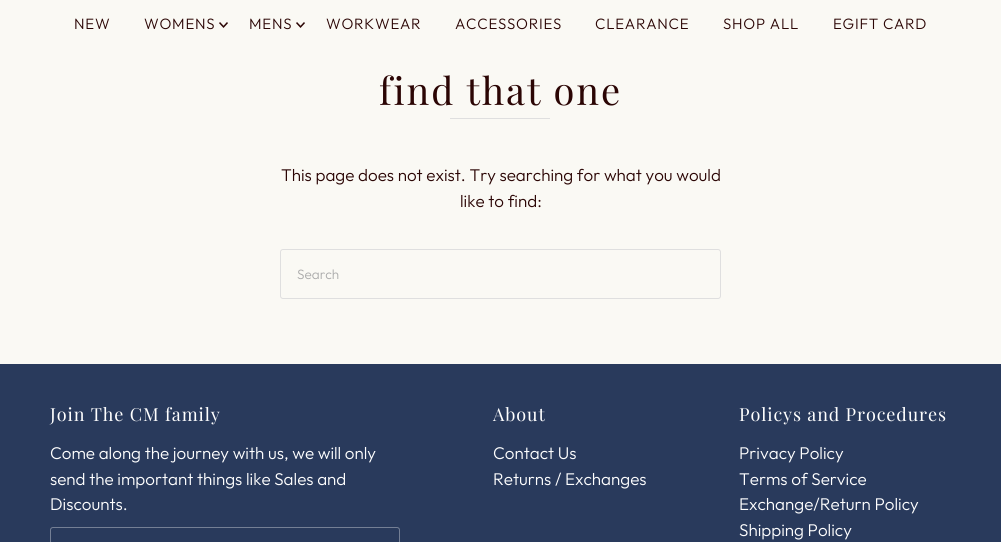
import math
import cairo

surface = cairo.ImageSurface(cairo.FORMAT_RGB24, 1001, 542)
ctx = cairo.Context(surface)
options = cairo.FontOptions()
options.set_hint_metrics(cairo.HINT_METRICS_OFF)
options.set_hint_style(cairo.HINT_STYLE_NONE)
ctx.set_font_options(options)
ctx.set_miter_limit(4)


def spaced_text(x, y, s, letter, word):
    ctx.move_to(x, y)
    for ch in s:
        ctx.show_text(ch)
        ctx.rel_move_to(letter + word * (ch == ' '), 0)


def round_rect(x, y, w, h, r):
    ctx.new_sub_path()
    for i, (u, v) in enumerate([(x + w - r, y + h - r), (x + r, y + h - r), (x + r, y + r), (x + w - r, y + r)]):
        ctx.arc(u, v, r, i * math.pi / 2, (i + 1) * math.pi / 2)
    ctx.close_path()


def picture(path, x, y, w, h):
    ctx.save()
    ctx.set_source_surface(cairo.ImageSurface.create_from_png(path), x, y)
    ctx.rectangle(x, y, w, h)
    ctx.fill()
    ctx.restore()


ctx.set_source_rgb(0.98, 0.973, 0.957)
ctx.paint()
ctx.select_font_face("Outfit Light")
ctx.set_font_size(15)
ctx.set_source_rgb(0.169, 0.02, 0.016)
spaced_text(74, 29, "NEW", 0.75, 0)
spaced_text(144, 29, "WOMENS", 0.75, 0)
picture("img1.png", 219, 22, 9, 6)
spaced_text(249, 29, "MENS", 0.75, 0)
picture("img1.png", 296, 22, 9, 6)
spaced_text(326, 29, "WORKWEAR", 0.75, 0)
spaced_text(455, 29, "ACCESSORIES", 0.75, 0)
spaced_text(595, 29, "CLEARANCE", 0.75, 0)
spaced_text(723, 29, "SHOP ALL", 0.75, 0)
spaced_text(833, 29, "EGIFT CARD", 0.75, 0)
ctx.select_font_face("Playfair Display")
ctx.set_font_size(38)
spaced_text(379, 105, "find that one", 1.9, 0)
ctx.set_source_rgb(0.875, 0.875, 0.875)
ctx.rectangle(450, 118, 100, 1)
ctx.fill()
ctx.select_font_face("Outfit Light")
ctx.set_font_size(17)
ctx.set_source_rgb(0.169, 0.02, 0.016)
ctx.move_to(281, 181)
ctx.show_text("This page does not exist. Try searching for what you would")
ctx.move_to(460, 207)
ctx.show_text("like to find:")
round_rect(280.5, 249.5, 440, 49, 2.5)
ctx.set_source_rgb(0.875, 0.875, 0.875)
ctx.set_line_width(1)
ctx.stroke()
ctx.set_font_size(13.5)
ctx.set_source_rgb(0.667, 0.667, 0.667)
ctx.move_to(297, 279)
ctx.show_text("Search")
ctx.set_source_rgb(0.161, 0.227, 0.361)
ctx.rectangle(0, 364, 1001, 178)
ctx.fill()
ctx.select_font_face("Playfair Display")
ctx.set_font_size(18)
ctx.set_source_rgb(1, 1, 1)
spaced_text(50, 421, "Join The CM family", 0.9, 0)
ctx.select_font_face("Outfit Light")
ctx.set_font_size(17)
ctx.move_to(50, 459)
ctx.show_text("Come along the journey with us, we will only")
ctx.move_to(50, 485)
ctx.show_text("send the important things like Sales and")
ctx.move_to(50, 510)
ctx.show_text("Discounts.")
round_rect(50.5, 527.5, 349, 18, 2.5)
ctx.set_source_rgb(0.455, 0.498, 0.584)
ctx.stroke()
ctx.select_font_face("Playfair Display")
ctx.set_font_size(18)
ctx.set_source_rgb(1, 1, 1)
spaced_text(493, 421, "About", 0.9, 0)
ctx.select_font_face("Outfit Light")
ctx.set_font_size(17)
ctx.move_to(493, 459)
ctx.show_text("Contact Us")
ctx.move_to(493, 485)
ctx.show_text("Returns / Exchanges")
ctx.select_font_face("Playfair Display")
ctx.set_font_size(18)
spaced_text(739, 421, "Policys and Procedures", 0.9, 0)
ctx.select_font_face("Outfit Light")
ctx.set_font_size(17)
ctx.move_to(739, 459)
ctx.show_text("Privacy Policy")
ctx.move_to(739, 485)
ctx.show_text("Terms of Service")
ctx.move_to(739, 510)
ctx.show_text("Exchange/Return Policy")
ctx.move_to(739, 536)
ctx.show_text("Shipping Policy")
surface.write_to_png("page.png")
